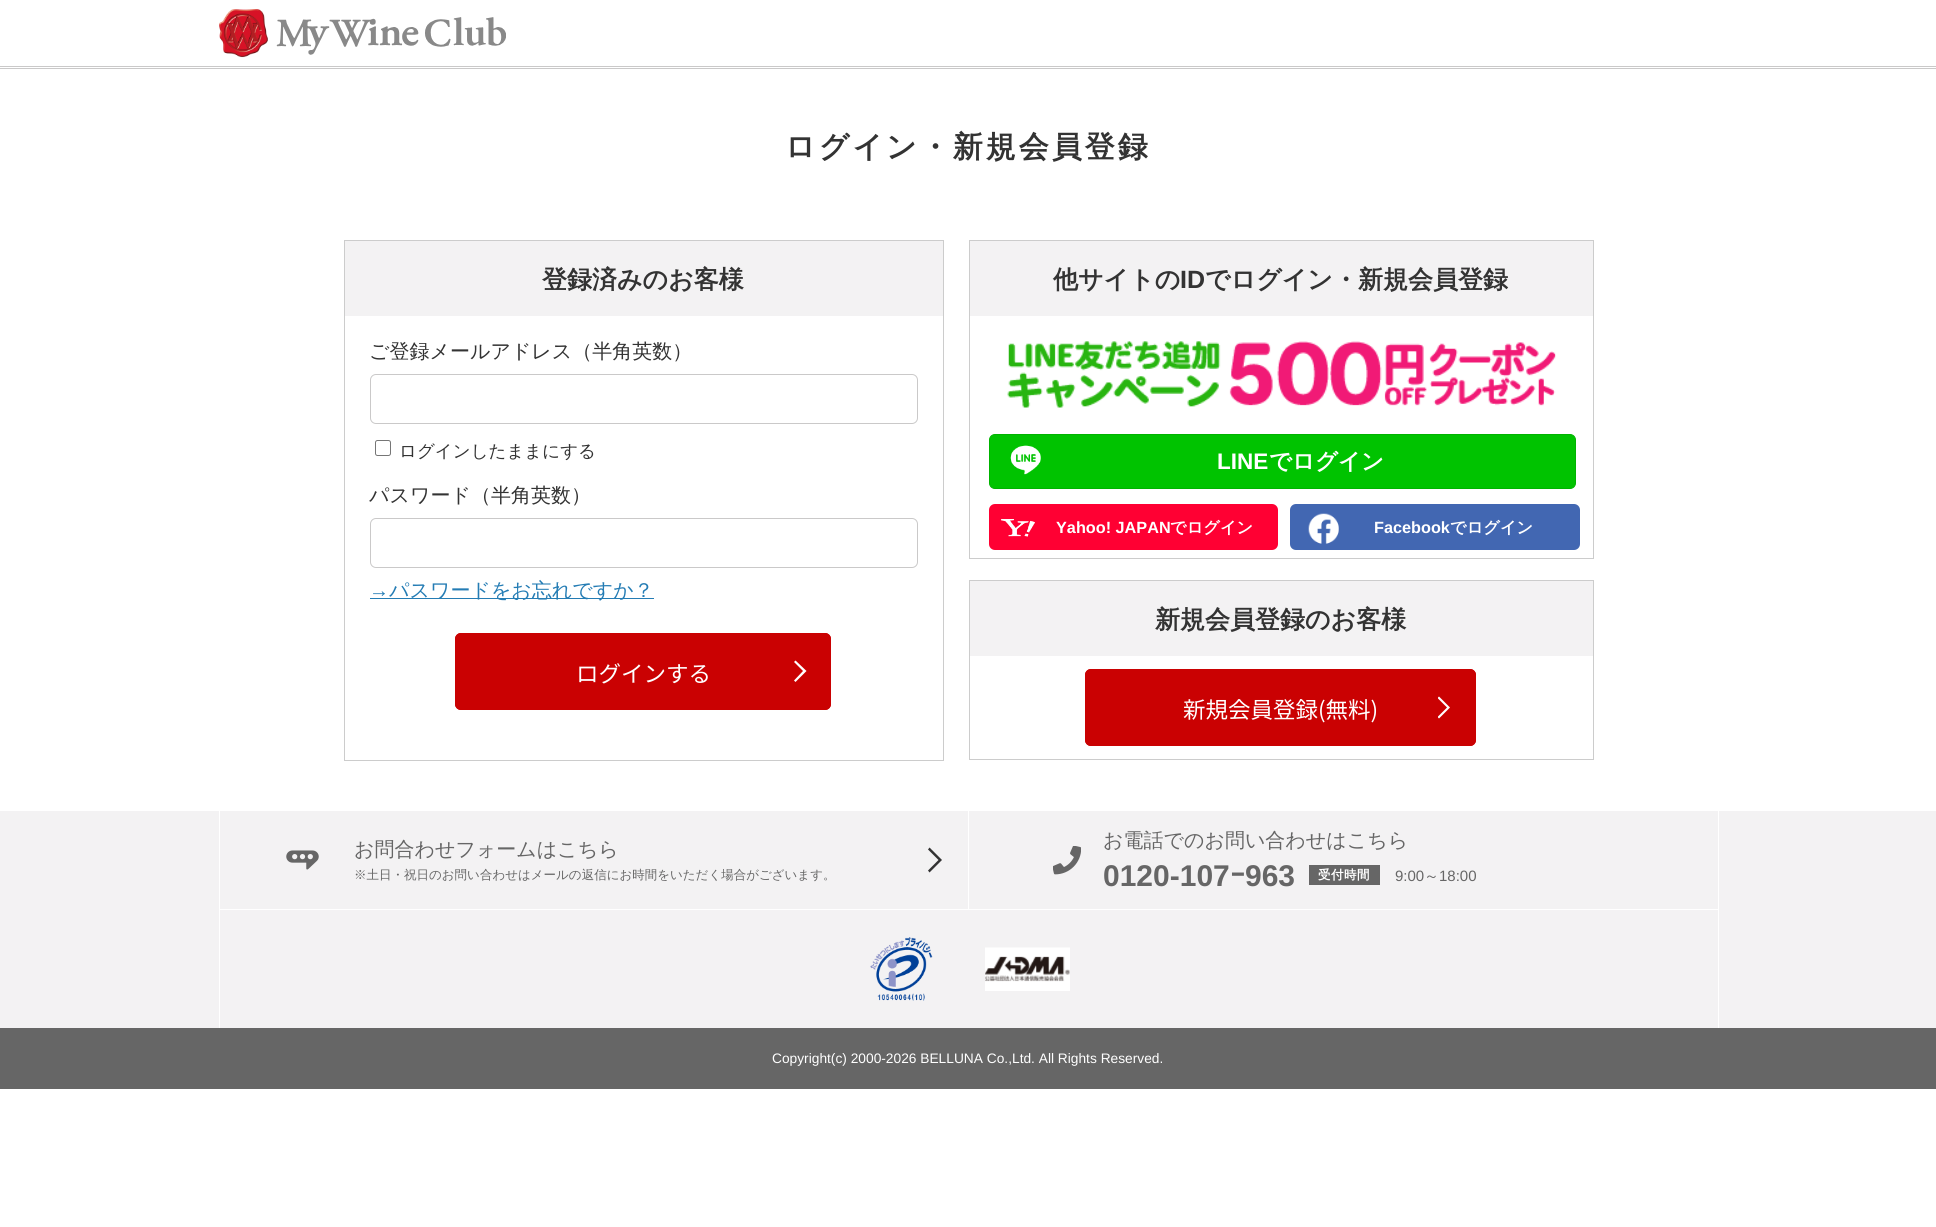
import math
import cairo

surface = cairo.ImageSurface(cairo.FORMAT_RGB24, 1936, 1227)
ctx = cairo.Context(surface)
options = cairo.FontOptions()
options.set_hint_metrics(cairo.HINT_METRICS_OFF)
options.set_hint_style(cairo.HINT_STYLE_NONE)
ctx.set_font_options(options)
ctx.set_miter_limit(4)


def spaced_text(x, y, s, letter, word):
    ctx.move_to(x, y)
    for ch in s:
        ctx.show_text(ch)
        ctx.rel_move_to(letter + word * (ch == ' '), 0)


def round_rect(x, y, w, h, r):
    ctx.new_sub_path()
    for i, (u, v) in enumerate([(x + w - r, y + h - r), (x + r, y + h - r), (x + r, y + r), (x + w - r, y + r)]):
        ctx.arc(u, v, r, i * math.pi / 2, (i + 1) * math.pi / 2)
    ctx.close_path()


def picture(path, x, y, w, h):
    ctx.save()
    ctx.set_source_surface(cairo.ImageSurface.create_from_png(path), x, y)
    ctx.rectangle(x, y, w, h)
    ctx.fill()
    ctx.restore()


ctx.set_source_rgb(1, 1, 1)
ctx.paint()
ctx.set_source_rgb(0.792, 0.788, 0.788)
ctx.rectangle(0, 68, 1936, 1)
ctx.fill()
ctx.rectangle(0, 66, 1936, 1)
ctx.fill()
picture("img1.png", 219, 9, 287, 49)
ctx.select_font_face("WenQuanYi Zen Hei", cairo.FONT_SLANT_NORMAL, cairo.FONT_WEIGHT_BOLD)
ctx.set_font_size(30)
ctx.set_source_rgb(0.2, 0.2, 0.2)
spaced_text(785, 157, "ログイン・新規会員登録", 3, 0)
ctx.rectangle(344.5, 240.5, 599, 520)
ctx.set_source_rgb(0.8, 0.8, 0.8)
ctx.set_line_width(1)
ctx.stroke()
ctx.set_source_rgb(0.953, 0.949, 0.953)
ctx.rectangle(345, 241, 598, 75)
ctx.fill()
ctx.set_font_size(25)
ctx.set_source_rgb(0.2, 0.2, 0.2)
ctx.move_to(542, 288)
ctx.show_text("登録済みのお客様")
ctx.select_font_face("WenQuanYi Zen Hei Medium")
ctx.set_font_size(20)
ctx.move_to(369, 358)
ctx.show_text("ご登録メールアドレス（半角英数）")
round_rect(370.5, 374.5, 547, 49, 5.5)
ctx.set_source_rgb(0.792, 0.788, 0.788)
ctx.stroke()
round_rect(375.5, 440.5, 15, 15, 2)
ctx.set_source_rgb(0.463, 0.463, 0.463)
ctx.stroke()
ctx.set_font_size(17.5)
ctx.set_source_rgb(0.2, 0.2, 0.2)
ctx.move_to(399, 457)
ctx.show_text("ログインしたままにする")
ctx.set_font_size(20)
ctx.move_to(369, 502)
ctx.show_text("パスワード（半角英数）")
round_rect(370.5, 518.5, 547, 49, 5.5)
ctx.set_source_rgb(0.792, 0.788, 0.788)
ctx.stroke()
ctx.select_font_face("Liberation Sans")
ctx.set_source_rgb(0.141, 0.486, 0.706)
ctx.move_to(369, 597)
ctx.show_text("→")
ctx.rectangle(370, 598, 284, 1)
ctx.fill()
ctx.select_font_face("WenQuanYi Zen Hei Medium")
ctx.move_to(389, 597)
ctx.show_text("パスワードをお忘れですか？")
ctx.set_source_rgb(0.792, 0.004, 0.008)
round_rect(455, 633, 376, 77, 6)
ctx.fill()
ctx.set_source_rgb(1, 1, 1)
ctx.new_path()
ctx.move_to(795.5, 660.5)
ctx.line_to(794, 662)
ctx.line_to(803, 671)
ctx.line_to(794, 680.5)
ctx.line_to(795.5, 682)
ctx.line_to(806.5, 671)
ctx.close_path()
ctx.fill()
round_rect(455.5, 633.5, 375, 76, 5.5)
ctx.set_source_rgb(0.792, 0.004, 0.008)
ctx.stroke()
ctx.select_font_face("Noto Sans JP")
ctx.set_font_size(22.5)
ctx.set_source_rgb(1, 1, 1)
ctx.move_to(576, 682)
ctx.show_text("ログインする")
ctx.rectangle(969.5, 240.5, 624, 318)
ctx.set_source_rgb(0.8, 0.8, 0.8)
ctx.stroke()
ctx.set_source_rgb(0.953, 0.949, 0.953)
ctx.rectangle(970, 241, 623, 75)
ctx.fill()
ctx.select_font_face("WenQuanYi Zen Hei", cairo.FONT_SLANT_NORMAL, cairo.FONT_WEIGHT_BOLD)
ctx.set_font_size(25)
ctx.set_source_rgb(0.2, 0.2, 0.2)
ctx.move_to(1053, 288)
ctx.show_text("他サイトの")
ctx.select_font_face("Liberation Sans", cairo.FONT_SLANT_NORMAL, cairo.FONT_WEIGHT_BOLD)
ctx.move_to(1180, 288)
ctx.show_text("ID")
ctx.select_font_face("WenQuanYi Zen Hei", cairo.FONT_SLANT_NORMAL, cairo.FONT_WEIGHT_BOLD)
ctx.move_to(1205, 288)
ctx.show_text("でログイン・新規会員登録")
picture("img2.png", 1007, 341, 549, 67)
ctx.set_source_rgb(0, 0.765, 0)
round_rect(989.5, 434.5, 586, 54, 5.5)
ctx.fill_preserve()
ctx.set_source_rgb(0, 0.702, 0)
ctx.stroke()
picture("img3.png", 1010, 445, 31, 30)
ctx.select_font_face("Liberation Sans", cairo.FONT_SLANT_NORMAL, cairo.FONT_WEIGHT_BOLD)
ctx.set_font_size(22.5)
ctx.set_source_rgb(1, 1, 1)
ctx.move_to(1217, 469)
ctx.show_text("LINE")
ctx.select_font_face("WenQuanYi Zen Hei", cairo.FONT_SLANT_NORMAL, cairo.FONT_WEIGHT_BOLD)
ctx.move_to(1269, 469)
ctx.show_text("でログイン")
ctx.set_source_rgb(1, 0, 0.2)
round_rect(989, 504, 289, 46, 6)
ctx.fill()
picture("img4.png", 1001, 519, 34, 18)
ctx.select_font_face("Liberation Sans", cairo.FONT_SLANT_NORMAL, cairo.FONT_WEIGHT_BOLD)
ctx.set_font_size(16.25)
ctx.set_source_rgb(1, 1, 1)
ctx.move_to(1056, 533)
ctx.show_text("Yahoo! JAPAN")
ctx.select_font_face("WenQuanYi Zen Hei", cairo.FONT_SLANT_NORMAL, cairo.FONT_WEIGHT_BOLD)
ctx.move_to(1170, 533)
ctx.show_text("でログイン")
ctx.set_source_rgb(0.259, 0.404, 0.698)
round_rect(1290, 504, 290, 46, 6)
ctx.fill()
picture("img5.png", 1308, 513, 31, 31)
ctx.select_font_face("Liberation Sans", cairo.FONT_SLANT_NORMAL, cairo.FONT_WEIGHT_BOLD)
ctx.set_source_rgb(1, 1, 1)
ctx.move_to(1374, 533)
ctx.show_text("Facebook")
ctx.select_font_face("WenQuanYi Zen Hei", cairo.FONT_SLANT_NORMAL, cairo.FONT_WEIGHT_BOLD)
ctx.move_to(1450, 533)
ctx.show_text("でログイン")
ctx.rectangle(969.5, 580.5, 624, 179)
ctx.set_source_rgb(0.8, 0.8, 0.8)
ctx.stroke()
ctx.set_source_rgb(0.953, 0.949, 0.953)
ctx.rectangle(970, 581, 623, 75)
ctx.fill()
ctx.set_font_size(25)
ctx.set_source_rgb(0.2, 0.2, 0.2)
ctx.move_to(1155, 628)
ctx.show_text("新規会員登録のお客様")
ctx.set_source_rgb(0.792, 0.004, 0.008)
round_rect(1085, 669, 391, 77, 6)
ctx.fill()
ctx.save()
ctx.rectangle(1438, 696, 12, 23)
ctx.clip()
ctx.set_source_rgb(1, 1, 1)
ctx.new_path()
ctx.move_to(1439, 696.5)
ctx.line_to(1437.5, 698)
ctx.line_to(1447, 707.5)
ctx.line_to(1437.5, 717)
ctx.line_to(1439, 718.5)
ctx.line_to(1450, 707.5)
ctx.close_path()
ctx.fill()
ctx.restore()
round_rect(1085.5, 669.5, 390, 76, 5.5)
ctx.stroke()
ctx.select_font_face("Noto Sans JP")
ctx.set_font_size(22.5)
ctx.set_source_rgb(1, 1, 1)
ctx.move_to(1183, 718)
ctx.show_text("新規会員登録(無料)")
ctx.set_source_rgb(0.953, 0.949, 0.953)
ctx.rectangle(0, 811, 1936, 217)
ctx.fill()
ctx.set_source_rgb(1, 1, 1)
ctx.rectangle(1718, 811, 1, 217)
ctx.fill()
ctx.rectangle(219, 811, 1, 217)
ctx.fill()
ctx.rectangle(968, 811, 1, 99)
ctx.fill()
ctx.rectangle(220, 909, 1498, 1)
ctx.fill()
picture("img6.png", 286, 850, 33, 20)
ctx.select_font_face("WenQuanYi Zen Hei Medium")
ctx.set_font_size(20)
ctx.set_source_rgb(0.4, 0.4, 0.4)
ctx.move_to(354, 856)
ctx.show_text("お問合わせフォームはこちら")
ctx.set_source_rgb(0.2, 0.2, 0.2)
ctx.new_path()
ctx.move_to(929.5, 847.5)
ctx.line_to(928, 849.5)
ctx.line_to(938.5, 860)
ctx.line_to(928, 870.5)
ctx.line_to(929.5, 872.5)
ctx.line_to(942, 860)
ctx.close_path()
ctx.fill()
ctx.set_font_size(12.5)
ctx.set_source_rgb(0.4, 0.4, 0.4)
ctx.move_to(354, 879)
ctx.show_text("※土日・祝日のお問い合わせはメールの返信にお時間をいただく場合がございます。")
picture("img7.png", 1053, 846, 28, 29)
ctx.set_font_size(20)
ctx.move_to(1103, 847)
ctx.show_text("お電話でのお問い合わせはこちら")
ctx.select_font_face("Liberation Sans", cairo.FONT_SLANT_NORMAL, cairo.FONT_WEIGHT_BOLD)
ctx.set_font_size(30)
ctx.move_to(1103, 886)
ctx.show_text("0120-107")
ctx.select_font_face("IPAPGothic", cairo.FONT_SLANT_NORMAL, cairo.FONT_WEIGHT_BOLD)
ctx.move_to(1230, 886)
ctx.show_text("ｰ")
ctx.select_font_face("Liberation Sans", cairo.FONT_SLANT_NORMAL, cairo.FONT_WEIGHT_BOLD)
ctx.move_to(1245, 886)
ctx.show_text("963")
ctx.rectangle(1309, 865, 71, 20)
ctx.fill()
ctx.select_font_face("WenQuanYi Zen Hei", cairo.FONT_SLANT_NORMAL, cairo.FONT_WEIGHT_BOLD)
ctx.set_font_size(12.5)
ctx.set_source_rgb(1, 1, 1)
spaced_text(1318, 879, "受付時間", 0.5, 0)
ctx.select_font_face("Liberation Sans")
ctx.set_font_size(15)
ctx.set_source_rgb(0.4, 0.4, 0.4)
ctx.move_to(1395, 881)
ctx.show_text("9:00")
ctx.select_font_face("WenQuanYi Zen Hei Medium")
ctx.move_to(1424, 881)
ctx.show_text("～")
ctx.select_font_face("Liberation Sans")
ctx.move_to(1439, 881)
ctx.show_text("18:00")
picture("img8.png", 870, 937, 63, 64)
picture("img9.png", 985, 947, 85, 44)
ctx.rectangle(0, 1028, 1936, 61)
ctx.fill()
ctx.set_font_size(13.75)
ctx.set_source_rgb(1, 1, 1)
ctx.move_to(772, 1063)
ctx.show_text("Copyright(c) 2000-2026 BELLUNA Co.,Ltd. All Rights Reserved.")
surface.write_to_png("page.png")
